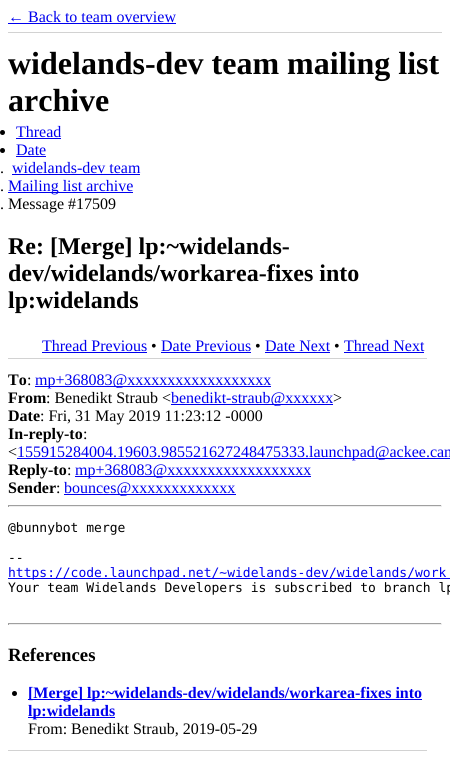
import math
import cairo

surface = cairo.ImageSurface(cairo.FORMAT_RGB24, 450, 757)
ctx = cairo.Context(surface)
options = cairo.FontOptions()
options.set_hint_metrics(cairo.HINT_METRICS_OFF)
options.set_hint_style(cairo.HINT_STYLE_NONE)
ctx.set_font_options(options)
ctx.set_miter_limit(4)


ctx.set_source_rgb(1, 1, 1)
ctx.paint()
ctx.set_source_rgb(0.824, 0.824, 0.824)
ctx.rectangle(8, 32, 434, 1)
ctx.fill()
ctx.select_font_face("Liberation Serif")
ctx.set_font_size(16)
ctx.set_source_rgb(0, 0, 0.933)
ctx.move_to(8, 22)
ctx.show_text("← Back to team overview")
ctx.rectangle(8, 23, 168, 1)
ctx.fill()
ctx.select_font_face("Liberation Serif", cairo.FONT_SLANT_NORMAL, cairo.FONT_WEIGHT_BOLD)
ctx.set_font_size(32)
ctx.set_source_rgb(0, 0, 0)
ctx.move_to(8, 74)
ctx.show_text("widelands-dev team mailing list")
ctx.move_to(8, 111)
ctx.show_text("archive")
ctx.new_path()
ctx.arc(2.5, 132.5, 2.5, 0, 2 * math.pi)
ctx.fill()
ctx.select_font_face("Liberation Serif")
ctx.set_font_size(16)
ctx.set_source_rgb(0, 0, 0.933)
ctx.move_to(16, 137)
ctx.show_text("Thread")
ctx.rectangle(16, 138, 45, 1)
ctx.fill()
ctx.set_source_rgb(0, 0, 0)
ctx.arc(2.5, 150.5, 2.5, 0, 2 * math.pi)
ctx.fill()
ctx.set_source_rgb(0, 0, 0.933)
ctx.move_to(16, 155)
ctx.show_text("Date")
ctx.rectangle(16, 156, 30, 1)
ctx.fill()
ctx.set_source_rgb(0, 0, 0)
ctx.move_to(0, 173)
ctx.show_text(".")
ctx.set_source_rgb(0, 0, 0.933)
ctx.move_to(12, 173)
ctx.show_text("widelands-dev team")
ctx.rectangle(12, 174, 128, 1)
ctx.fill()
ctx.set_source_rgb(0, 0, 0)
ctx.move_to(0, 191)
ctx.show_text(".")
ctx.set_source_rgb(0, 0, 0.933)
ctx.rectangle(8, 192, 125, 1)
ctx.fill()
ctx.move_to(8, 191)
ctx.show_text("Mailing list archive")
ctx.set_source_rgb(0, 0, 0)
ctx.move_to(0, 209)
ctx.show_text(". Message #17509")
ctx.select_font_face("Liberation Serif", cairo.FONT_SLANT_NORMAL, cairo.FONT_WEIGHT_BOLD)
ctx.set_font_size(24)
ctx.move_to(8, 254)
ctx.show_text("Re: [Merge] lp:~widelands-")
ctx.move_to(8, 281)
ctx.show_text("dev/widelands/workarea-fixes into")
ctx.move_to(8, 308)
ctx.show_text("lp:widelands")
ctx.set_source_rgb(0.824, 0.824, 0.824)
ctx.rectangle(8, 358, 419, 1)
ctx.fill()
ctx.select_font_face("Liberation Serif")
ctx.set_font_size(16)
ctx.set_source_rgb(0, 0, 0.933)
ctx.move_to(42, 351)
ctx.show_text("Thread Previous")
ctx.rectangle(42, 352, 105, 1)
ctx.fill()
ctx.set_source_rgb(0, 0, 0)
ctx.move_to(151, 351)
ctx.show_text("•")
ctx.set_source_rgb(0, 0, 0.933)
ctx.move_to(161, 351)
ctx.show_text("Date Previous")
ctx.rectangle(161, 352, 90, 1)
ctx.fill()
ctx.set_source_rgb(0, 0, 0)
ctx.move_to(255, 351)
ctx.show_text("•")
ctx.set_source_rgb(0, 0, 0.933)
ctx.move_to(265, 351)
ctx.show_text("Date Next")
ctx.rectangle(265, 352, 65, 1)
ctx.fill()
ctx.set_source_rgb(0, 0, 0)
ctx.move_to(334, 351)
ctx.show_text("•")
ctx.set_source_rgb(0, 0, 0.933)
ctx.move_to(344, 351)
ctx.show_text("Thread Next")
ctx.rectangle(344, 352, 80, 1)
ctx.fill()
ctx.select_font_face("Liberation Serif", cairo.FONT_SLANT_NORMAL, cairo.FONT_WEIGHT_BOLD)
ctx.set_source_rgb(0, 0, 0)
ctx.move_to(8, 385)
ctx.show_text("To")
ctx.select_font_face("Liberation Serif")
ctx.move_to(27, 385)
ctx.show_text(":")
ctx.set_source_rgb(0, 0, 0.933)
ctx.rectangle(35, 386, 236, 1)
ctx.fill()
ctx.move_to(35, 385)
ctx.show_text("mp+368083@xxxxxxxxxxxxxxxxxx")
ctx.select_font_face("Liberation Serif", cairo.FONT_SLANT_NORMAL, cairo.FONT_WEIGHT_BOLD)
ctx.set_source_rgb(0, 0, 0)
ctx.move_to(8, 403)
ctx.show_text("From")
ctx.select_font_face("Liberation Serif")
ctx.move_to(46, 403)
ctx.show_text(": Benedikt Straub <")
ctx.set_source_rgb(0, 0, 0.933)
ctx.rectangle(171, 404, 162, 1)
ctx.fill()
ctx.move_to(171, 403)
ctx.show_text("benedikt-straub@xxxxxx")
ctx.set_source_rgb(0, 0, 0)
ctx.move_to(333, 403)
ctx.show_text(">")
ctx.select_font_face("Liberation Serif", cairo.FONT_SLANT_NORMAL, cairo.FONT_WEIGHT_BOLD)
ctx.move_to(8, 421)
ctx.show_text("Date")
ctx.select_font_face("Liberation Serif")
ctx.move_to(40, 421)
ctx.show_text(": Fri, 31 May 2019 11:23:12 -0000")
ctx.select_font_face("Liberation Serif", cairo.FONT_SLANT_NORMAL, cairo.FONT_WEIGHT_BOLD)
ctx.move_to(8, 439)
ctx.show_text("In-reply-to")
ctx.select_font_face("Liberation Serif")
ctx.move_to(83, 439)
ctx.show_text(":")
ctx.move_to(8, 457)
ctx.show_text("<")
ctx.set_source_rgb(0, 0, 0.933)
ctx.rectangle(17, 458, 433, 1)
ctx.fill()
ctx.move_to(17, 457)
ctx.show_text("155915284004.19603.985521627248475333.launchpad@ackee.can")
ctx.select_font_face("Liberation Serif", cairo.FONT_SLANT_NORMAL, cairo.FONT_WEIGHT_BOLD)
ctx.set_source_rgb(0, 0, 0)
ctx.move_to(8, 475)
ctx.show_text("Reply-to")
ctx.select_font_face("Liberation Serif")
ctx.move_to(67, 475)
ctx.show_text(":")
ctx.set_source_rgb(0, 0, 0.933)
ctx.rectangle(75, 476, 236, 1)
ctx.fill()
ctx.move_to(75, 475)
ctx.show_text("mp+368083@xxxxxxxxxxxxxxxxxx")
ctx.select_font_face("Liberation Serif", cairo.FONT_SLANT_NORMAL, cairo.FONT_WEIGHT_BOLD)
ctx.set_source_rgb(0, 0, 0)
ctx.move_to(8, 493)
ctx.show_text("Sender")
ctx.select_font_face("Liberation Serif")
ctx.move_to(56, 493)
ctx.show_text(":")
ctx.set_source_rgb(0, 0, 0.933)
ctx.rectangle(64, 494, 172, 1)
ctx.fill()
ctx.move_to(64, 493)
ctx.show_text("bounces@xxxxxxxxxxxxx")
ctx.set_source_rgb(0.624, 0.624, 0.624)
ctx.rectangle(8, 505, 434, 1)
ctx.fill()
ctx.set_source_rgb(0.933, 0.933, 0.933)
ctx.rectangle(441, 505, 1, 2)
ctx.fill()
ctx.rectangle(8, 506, 434, 1)
ctx.fill()
ctx.set_source_rgb(0.624, 0.624, 0.624)
ctx.rectangle(8, 505, 1, 2)
ctx.fill()
ctx.select_font_face("DejaVu Sans Mono")
ctx.set_font_size(13)
ctx.set_source_rgb(0, 0, 0)
ctx.move_to(8, 532)
ctx.show_text("@bunnybot merge")
ctx.move_to(8, 562)
ctx.show_text("--")
ctx.set_source_rgb(0, 0, 0.933)
ctx.rectangle(8, 578, 442, 1)
ctx.fill()
ctx.move_to(8, 577)
ctx.show_text("https://code.launchpad.net/~widelands-dev/widelands/work")
ctx.set_source_rgb(0, 0, 0)
ctx.move_to(8, 592)
ctx.show_text("Your team Widelands Developers is subscribed to branch lp")
ctx.set_source_rgb(0.624, 0.624, 0.624)
ctx.rectangle(8, 623, 434, 1)
ctx.fill()
ctx.set_source_rgb(0.933, 0.933, 0.933)
ctx.rectangle(441, 623, 1, 2)
ctx.fill()
ctx.rectangle(8, 624, 434, 1)
ctx.fill()
ctx.set_source_rgb(0.624, 0.624, 0.624)
ctx.rectangle(8, 623, 1, 2)
ctx.fill()
ctx.select_font_face("Liberation Serif", cairo.FONT_SLANT_NORMAL, cairo.FONT_WEIGHT_BOLD)
ctx.set_font_size(18.75)
ctx.set_source_rgb(0, 0, 0)
ctx.move_to(8, 661)
ctx.show_text("References")
ctx.new_path()
ctx.arc(14.5, 693.5, 2.5, 0, 2 * math.pi)
ctx.fill()
ctx.set_source_rgb(0, 0, 0.933)
ctx.rectangle(28, 699, 394, 1)
ctx.fill()
ctx.set_font_size(16)
ctx.move_to(28, 698)
ctx.show_text("[Merge] lp:~widelands-dev/widelands/workarea-fixes into")
ctx.rectangle(28, 717, 87, 1)
ctx.fill()
ctx.move_to(28, 716)
ctx.show_text("lp:widelands")
ctx.select_font_face("Liberation Serif")
ctx.set_source_rgb(0, 0, 0)
ctx.move_to(28, 734)
ctx.show_text("From: Benedikt Straub, 2019-05-29")
ctx.set_source_rgb(0.824, 0.824, 0.824)
ctx.rectangle(8, 750, 419, 1)
ctx.fill()
surface.write_to_png("page.png")
